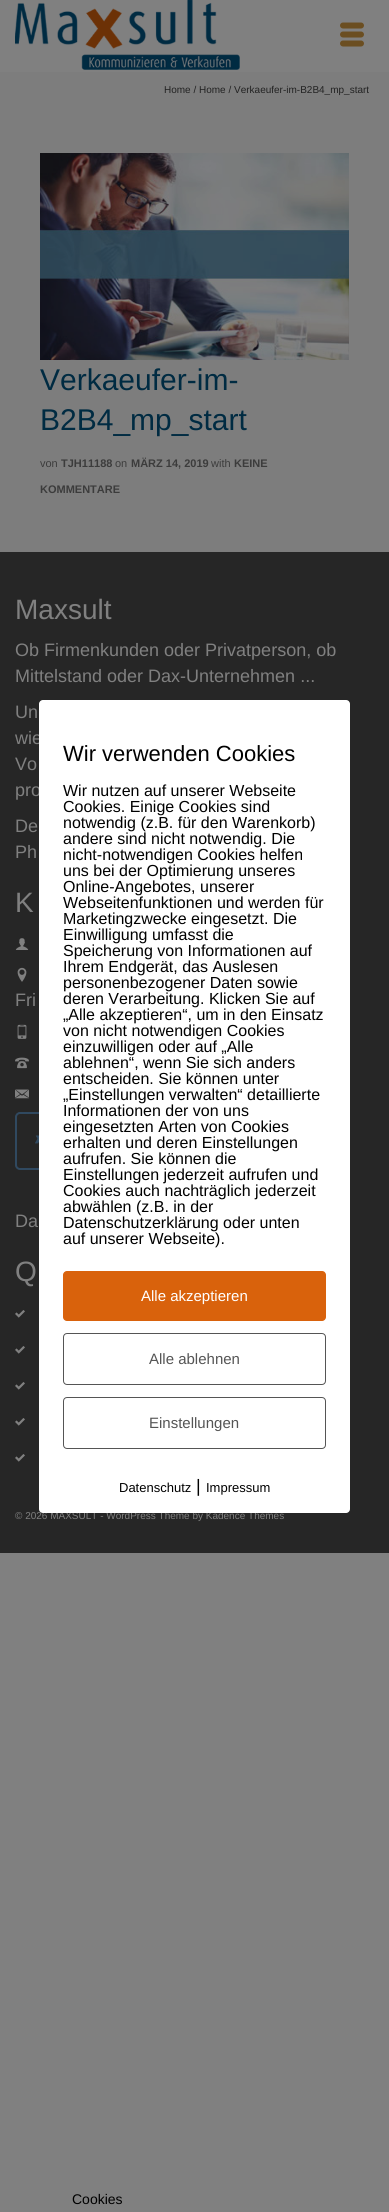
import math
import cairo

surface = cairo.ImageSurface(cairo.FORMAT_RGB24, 389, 2212)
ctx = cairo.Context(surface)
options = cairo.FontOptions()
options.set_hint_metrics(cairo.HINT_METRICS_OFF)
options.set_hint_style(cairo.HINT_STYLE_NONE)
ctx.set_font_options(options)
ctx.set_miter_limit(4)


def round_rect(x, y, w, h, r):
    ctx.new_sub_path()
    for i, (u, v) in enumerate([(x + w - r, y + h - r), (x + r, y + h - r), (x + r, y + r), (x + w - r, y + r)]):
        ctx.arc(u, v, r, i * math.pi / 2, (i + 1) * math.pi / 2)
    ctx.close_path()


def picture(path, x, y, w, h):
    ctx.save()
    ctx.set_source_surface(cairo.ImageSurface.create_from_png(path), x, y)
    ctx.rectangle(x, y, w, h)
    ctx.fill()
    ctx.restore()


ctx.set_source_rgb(0.502, 0.502, 0.502)
ctx.paint()
picture("img1.png", 15, 0, 225, 70)
picture("img2.png", 340, 22, 24, 25)
ctx.set_source_rgb(0.49, 0.49, 0.49)
ctx.rectangle(0, 72, 389, 480)
ctx.fill()
ctx.select_font_face("Liberation Sans")
ctx.set_font_size(10)
ctx.set_source_rgb(0.133, 0.133, 0.133)
ctx.move_to(164, 93)
ctx.show_text("Home / Home / Verkaeufer-im-B2B4_mp_start")
picture("img3.png", 40, 153, 309, 207)
ctx.set_font_size(30)
ctx.set_source_rgb(0, 0.169, 0.259)
ctx.move_to(40, 390)
ctx.show_text("Verkaeufer-im-")
ctx.move_to(40, 430)
ctx.show_text("B2B4_mp_start")
ctx.set_font_size(11)
ctx.set_source_rgb(0.235, 0.235, 0.235)
ctx.move_to(40, 467)
ctx.show_text("von")
ctx.select_font_face("Liberation Sans", cairo.FONT_SLANT_NORMAL, cairo.FONT_WEIGHT_BOLD)
ctx.move_to(61, 467)
ctx.show_text("TJH11188")
ctx.select_font_face("Liberation Sans")
ctx.move_to(115, 467)
ctx.show_text("on")
ctx.select_font_face("Liberation Sans", cairo.FONT_SLANT_NORMAL, cairo.FONT_WEIGHT_BOLD)
ctx.move_to(131, 467)
ctx.show_text("MÄRZ 14, 2019")
ctx.select_font_face("Liberation Sans")
ctx.move_to(211, 467)
ctx.show_text("with")
ctx.select_font_face("Liberation Sans", cairo.FONT_SLANT_NORMAL, cairo.FONT_WEIGHT_BOLD)
ctx.move_to(234, 467)
ctx.show_text("KEINE")
ctx.move_to(40, 493)
ctx.show_text("KOMMENTARE")
ctx.set_source_rgb(0.149, 0.149, 0.149)
ctx.rectangle(0, 552, 389, 1001)
ctx.fill()
ctx.select_font_face("Liberation Sans")
ctx.set_font_size(28)
ctx.set_source_rgb(0.502, 0.502, 0.502)
ctx.move_to(15, 619)
ctx.show_text("Maxsult")
ctx.set_font_size(18)
ctx.move_to(15, 656)
ctx.show_text("Ob Firmenkunden oder Privatperson, ob")
ctx.move_to(15, 682)
ctx.show_text("Mittelstand oder Dax-Unternehmen ...")
ctx.move_to(15, 718)
ctx.show_text("Un")
ctx.move_to(15, 744)
ctx.show_text("wie")
ctx.move_to(15, 770)
ctx.show_text("Vo")
ctx.move_to(15, 796)
ctx.show_text("pro")
ctx.move_to(15, 832)
ctx.show_text("De")
ctx.move_to(15, 858)
ctx.show_text("Ph")
ctx.set_font_size(28)
ctx.move_to(15, 912)
ctx.show_text("K")
picture("img4.png", 15, 938, 14, 12)
picture("img5.png", 17, 967, 10, 15)
ctx.set_font_size(18)
ctx.move_to(15, 1006)
ctx.show_text("Fri")
picture("img6.png", 17, 1024, 10, 15)
picture("img7.png", 15, 1057, 14, 12)
picture("img8.png", 15, 1089, 14, 10)
round_rect(16, 1113, 52, 56, 4)
ctx.set_source_rgb(0.188, 0.286, 0.376)
ctx.stroke()
picture("img9.png", 35, 1135, 4, 9)
ctx.set_source_rgb(0.502, 0.502, 0.502)
ctx.move_to(15, 1227)
ctx.show_text("Da")
ctx.set_font_size(28)
ctx.move_to(15, 1281)
ctx.show_text("Q")
picture("img10.png", 15, 1310, 10, 8)
picture("img10.png", 15, 1346, 10, 8)
picture("img10.png", 15, 1382, 10, 8)
picture("img10.png", 15, 1418, 10, 8)
picture("img10.png", 15, 1454, 10, 8)
ctx.set_font_size(10)
ctx.move_to(15, 1519)
ctx.show_text("© 2026 MAXSULT - WordPress Theme by Kadence Themes")
ctx.set_source_rgb(1, 1, 1)
round_rect(39, 700, 311, 813, 4)
ctx.fill()
ctx.set_font_size(22)
ctx.set_source_rgb(0, 0, 0)
ctx.move_to(63, 761)
ctx.show_text("Wir verwenden Cookies")
ctx.set_font_size(16)
ctx.move_to(63, 796)
ctx.show_text("Wir nutzen auf unserer Webseite")
ctx.move_to(63, 812)
ctx.show_text("Cookies. Einige Cookies sind")
ctx.move_to(63, 828)
ctx.show_text("notwendig (z.B. für den Warenkorb)")
ctx.move_to(63, 844)
ctx.show_text("andere sind nicht notwendig. Die")
ctx.move_to(63, 860)
ctx.show_text("nicht-notwendigen Cookies helfen")
ctx.move_to(63, 876)
ctx.show_text("uns bei der Optimierung unseres")
ctx.move_to(63, 892)
ctx.show_text("Online-Angebotes, unserer")
ctx.move_to(63, 908)
ctx.show_text("Webseitenfunktionen und werden für")
ctx.move_to(63, 924)
ctx.show_text("Marketingzwecke eingesetzt. Die")
ctx.move_to(63, 940)
ctx.show_text("Einwilligung umfasst die")
ctx.move_to(63, 956)
ctx.show_text("Speicherung von Informationen auf")
ctx.move_to(63, 972)
ctx.show_text("Ihrem Endgerät, das Auslesen")
ctx.move_to(63, 988)
ctx.show_text("personenbezogener Daten sowie")
ctx.move_to(63, 1004)
ctx.show_text("deren Verarbeitung. Klicken Sie auf")
ctx.move_to(63, 1020)
ctx.show_text("„Alle akzeptieren“, um in den Einsatz")
ctx.move_to(63, 1036)
ctx.show_text("von nicht notwendigen Cookies")
ctx.move_to(63, 1052)
ctx.show_text("einzuwilligen oder auf „Alle")
ctx.move_to(63, 1068)
ctx.show_text("ablehnen“, wenn Sie sich anders")
ctx.move_to(63, 1084)
ctx.show_text("entscheiden. Sie können unter")
ctx.move_to(63, 1100)
ctx.show_text("„Einstellungen verwalten“ detaillierte")
ctx.move_to(63, 1116)
ctx.show_text("Informationen der von uns")
ctx.move_to(63, 1132)
ctx.show_text("eingesetzten Arten von Cookies")
ctx.move_to(63, 1148)
ctx.show_text("erhalten und deren Einstellungen")
ctx.move_to(63, 1164)
ctx.show_text("aufrufen. Sie können die")
ctx.move_to(63, 1180)
ctx.show_text("Einstellungen jederzeit aufrufen und")
ctx.move_to(63, 1196)
ctx.show_text("Cookies auch nachträglich jederzeit")
ctx.move_to(63, 1212)
ctx.show_text("abwählen (z.B. in der")
ctx.move_to(63, 1228)
ctx.show_text("Datenschutzerklärung oder unten")
ctx.move_to(63, 1244)
ctx.show_text("auf unserer Webseite).")
ctx.set_source_rgb(0.851, 0.384, 0.047)
round_rect(63, 1271, 263, 50, 4)
ctx.fill()
ctx.set_font_size(15)
ctx.set_source_rgb(1, 1, 1)
ctx.move_to(141, 1301)
ctx.show_text("Alle akzeptieren")
round_rect(63.5, 1333.5, 262, 51, 3.5)
ctx.set_source_rgb(0.333, 0.333, 0.333)
ctx.set_line_width(1)
ctx.stroke()
ctx.move_to(149, 1364)
ctx.show_text("Alle ablehnen")
round_rect(63.5, 1397.5, 262, 51, 3.5)
ctx.stroke()
ctx.move_to(149, 1428)
ctx.show_text("Einstellungen")
ctx.set_font_size(13)
ctx.set_source_rgb(0, 0, 0)
ctx.move_to(119, 1492)
ctx.show_text("Datenschutz")
ctx.set_font_size(18)
ctx.move_to(196, 1492)
ctx.show_text("|")
ctx.set_font_size(13)
ctx.move_to(206, 1492)
ctx.show_text("Impressum")
ctx.set_font_size(14)
ctx.move_to(72, 2204)
ctx.show_text("Cookies")
surface.write_to_png("page.png")
